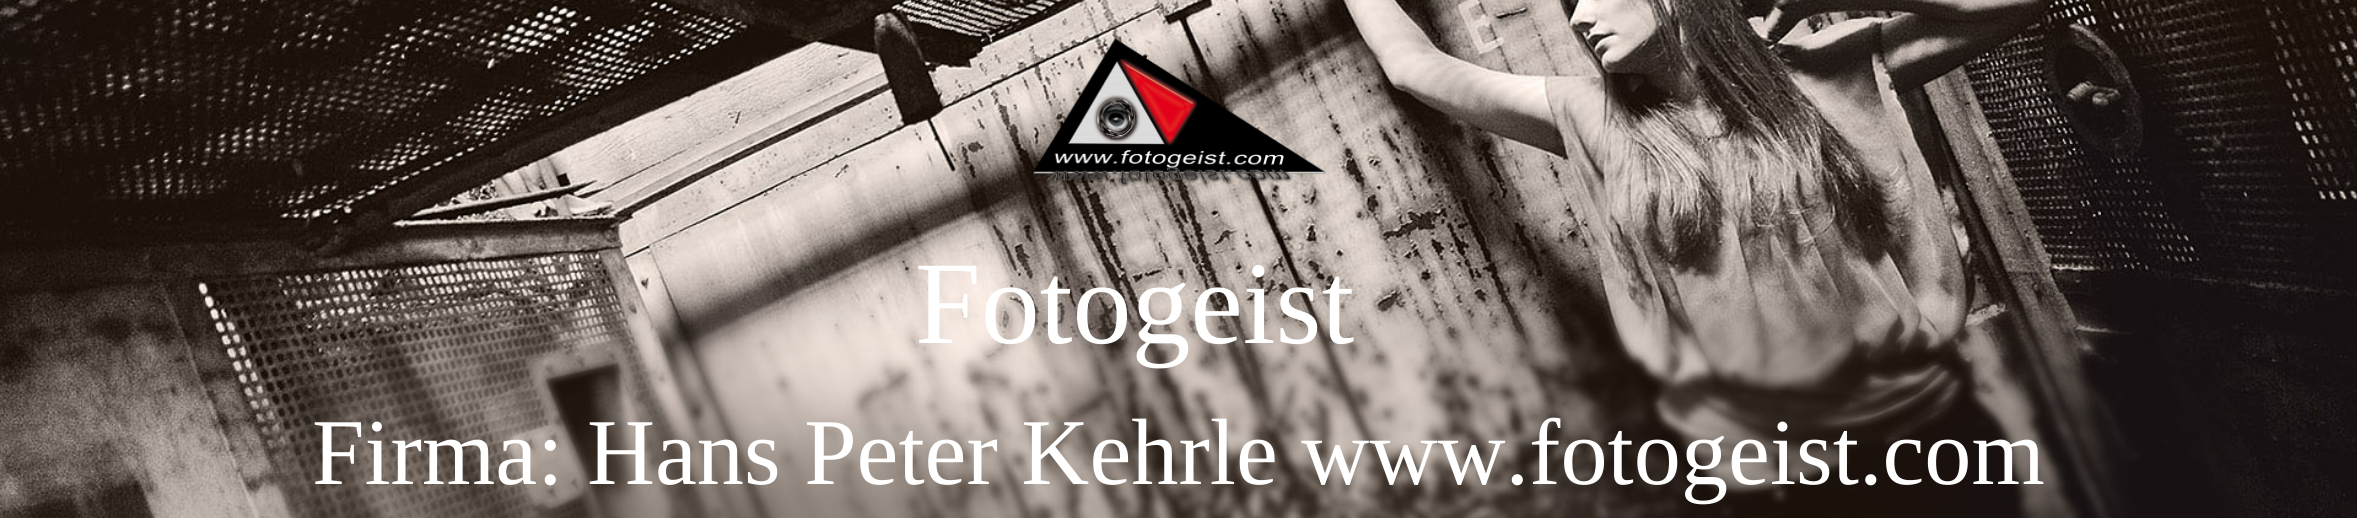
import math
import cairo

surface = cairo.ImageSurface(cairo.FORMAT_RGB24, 2357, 518)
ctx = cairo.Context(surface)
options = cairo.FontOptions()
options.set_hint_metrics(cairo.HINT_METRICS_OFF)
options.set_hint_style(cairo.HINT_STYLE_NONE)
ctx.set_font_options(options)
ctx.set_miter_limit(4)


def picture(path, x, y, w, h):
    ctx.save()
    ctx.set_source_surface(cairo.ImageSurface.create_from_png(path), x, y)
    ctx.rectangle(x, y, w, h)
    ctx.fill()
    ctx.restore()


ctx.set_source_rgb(1, 1, 1)
ctx.paint()
picture("img1.png", 0, 0, 2357, 518)
picture("img2.png", 1033, 38, 293, 149)
ctx.select_font_face("Liberation Serif")
ctx.set_font_size(118)
ctx.set_source_rgb(1, 1, 1)
ctx.move_to(915, 343)
ctx.show_text("Fotogeist")
ctx.set_font_size(94.25)
ctx.move_to(312, 484)
ctx.show_text("Firma: Hans Peter Kehrle www.fotogeist.com")
surface.write_to_png("page.png")
